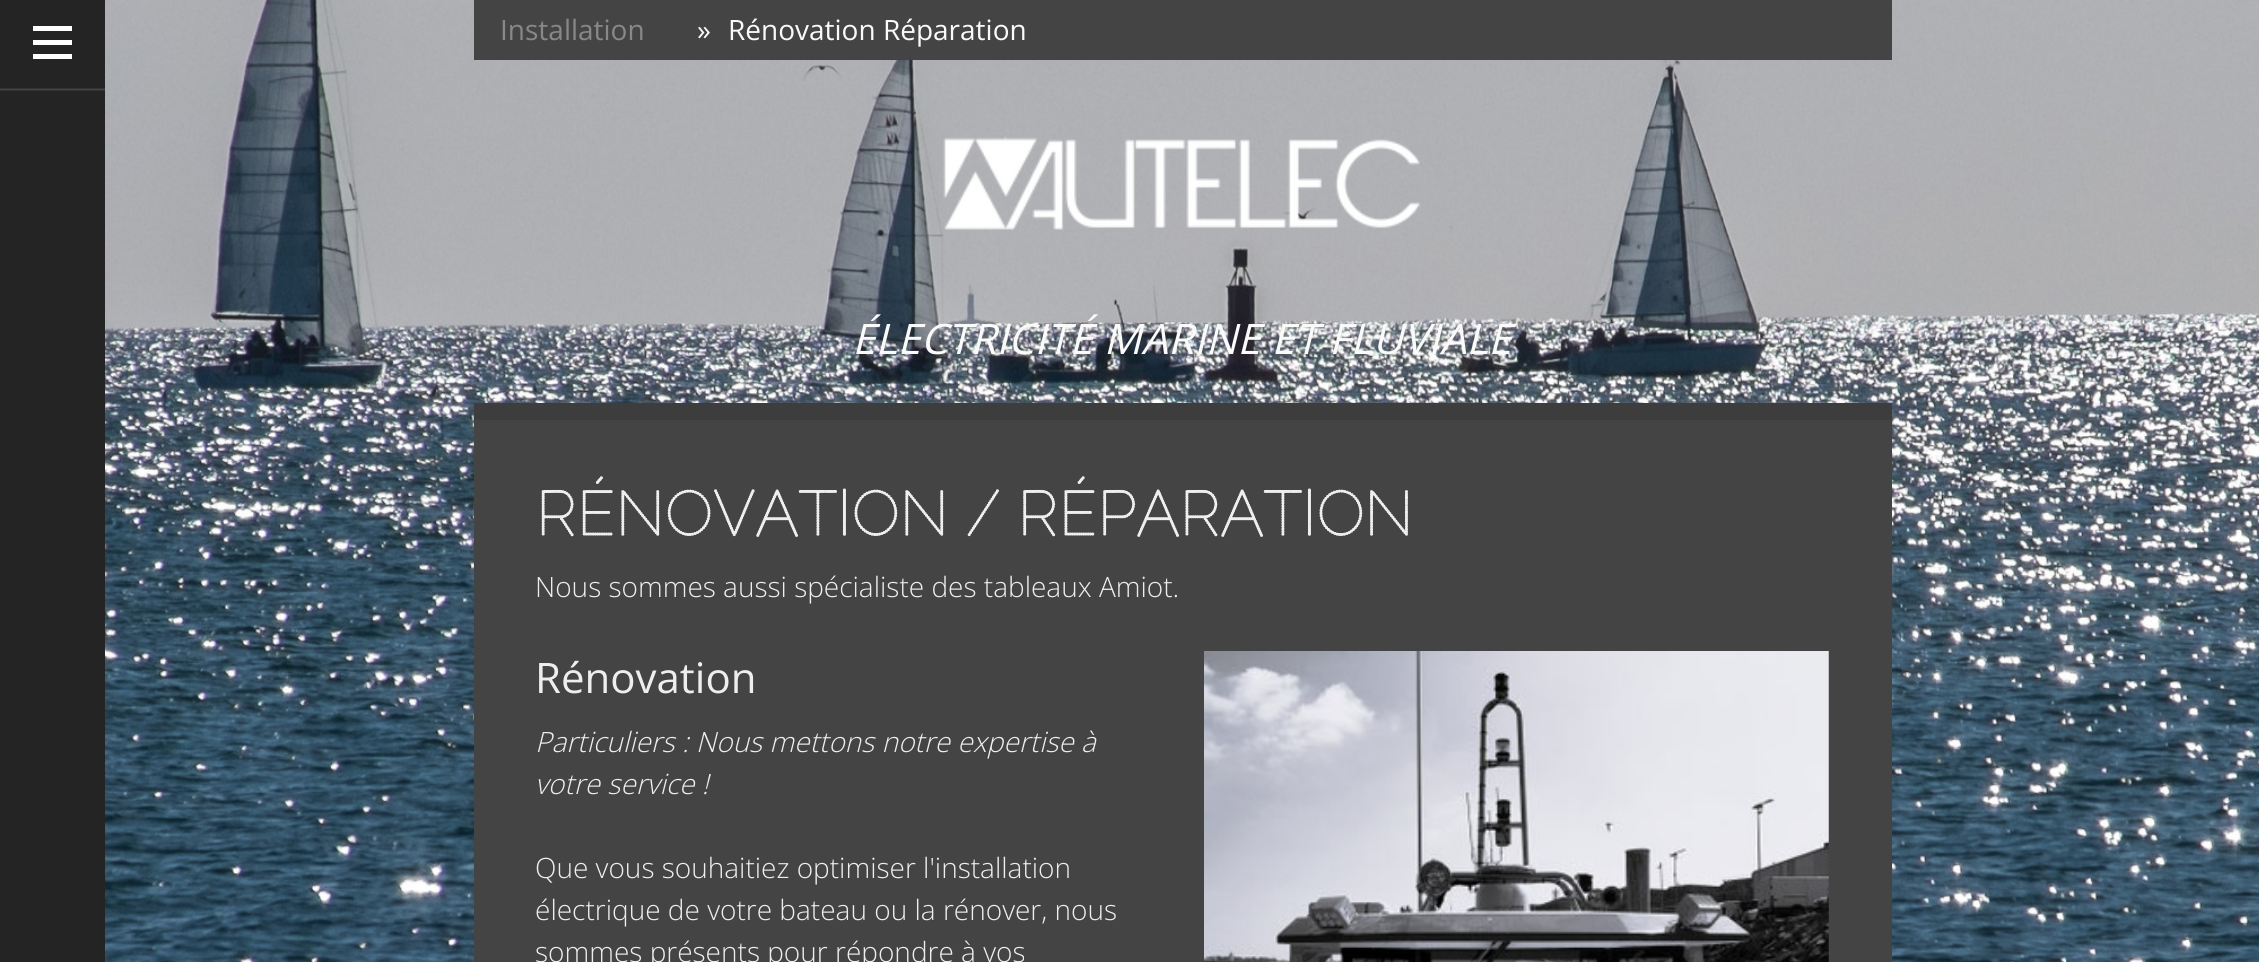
import math
import cairo

surface = cairo.ImageSurface(cairo.FORMAT_RGB24, 2259, 962)
ctx = cairo.Context(surface)
options = cairo.FontOptions()
options.set_hint_metrics(cairo.HINT_METRICS_OFF)
options.set_hint_style(cairo.HINT_STYLE_NONE)
ctx.set_font_options(options)
ctx.set_miter_limit(4)


def picture(path, x, y, w, h):
    ctx.save()
    ctx.set_source_surface(cairo.ImageSurface.create_from_png(path), x, y)
    ctx.rectangle(x, y, w, h)
    ctx.fill()
    ctx.restore()


ctx.set_source_rgb(1, 1, 1)
ctx.paint()
ctx.set_source_rgb(0.141, 0.141, 0.141)
ctx.rectangle(0, 0, 105, 962)
ctx.fill()
ctx.set_source_rgb(1, 1, 1)
ctx.rectangle(33, 40, 39, 5)
ctx.fill()
ctx.rectangle(33, 26, 39, 5)
ctx.fill()
ctx.rectangle(33, 54, 39, 5)
ctx.fill()
ctx.set_source_rgb(0.204, 0.204, 0.204)
ctx.rectangle(0, 88, 105, 2)
ctx.fill()
ctx.set_source_rgba(0.784, 0.784, 0.784, 0.1)
ctx.rectangle(0, 89, 105, 2)
ctx.fill()
picture("img1.png", 105, 0, 2154, 962)
ctx.set_source_rgb(0.267, 0.267, 0.267)
ctx.rectangle(474, 0, 1418, 60)
ctx.fill()
ctx.select_font_face("Open Sans")
ctx.set_font_size(28)
ctx.set_source_rgb(0.533, 0.533, 0.533)
ctx.move_to(500, 40)
ctx.show_text("Installation")
ctx.set_source_rgb(0.98, 0.98, 0.98)
ctx.move_to(697, 40)
ctx.show_text("»")
ctx.move_to(728, 40)
ctx.show_text("Rénovation Réparation")
picture("img2.png", 943, 136, 477, 94)
ctx.select_font_face("Open Sans", cairo.FONT_SLANT_ITALIC)
ctx.set_font_size(42)
ctx.move_to(852, 354)
ctx.show_text("ÉLECTRICITÉ MARINE ET FLUVIALE")
ctx.set_source_rgb(0.267, 0.267, 0.267)
ctx.rectangle(474, 420, 1418, 542)
ctx.fill()
ctx.set_source_rgb(0.239, 0.239, 0.239)
ctx.rectangle(474, 403, 1418, 17)
ctx.fill()
ctx.select_font_face("Raleway Dots", cairo.FONT_SLANT_NORMAL, cairo.FONT_WEIGHT_BOLD)
ctx.set_font_size(63)
ctx.set_source_rgb(0.933, 0.933, 0.933)
ctx.move_to(535, 536)
ctx.show_text("RÉNOVATION / RÉPARATION")
ctx.select_font_face("Open Sans Light")
ctx.set_font_size(28)
ctx.move_to(535, 597)
ctx.show_text("Nous sommes aussi spécialiste des tableaux Amiot.")
ctx.select_font_face("Open Sans")
ctx.set_font_size(42)
ctx.move_to(535, 693)
ctx.show_text("Rénovation")
ctx.select_font_face("Open Sans Light", cairo.FONT_SLANT_ITALIC)
ctx.set_font_size(28)
ctx.move_to(535, 752)
ctx.show_text("Particuliers : Nous mettons notre expertise à")
ctx.move_to(535, 794)
ctx.show_text("votre service !")
ctx.select_font_face("Open Sans Light")
ctx.move_to(535, 878)
ctx.show_text("Que vous souhaitiez optimiser l'installation")
ctx.move_to(535, 920)
ctx.show_text("électrique de votre bateau ou la rénover, nous")
ctx.move_to(535, 962)
ctx.show_text("sommes présents pour répondre à vos")
picture("img3.png", 1204, 651, 625, 311)
surface.write_to_png("page.png")
